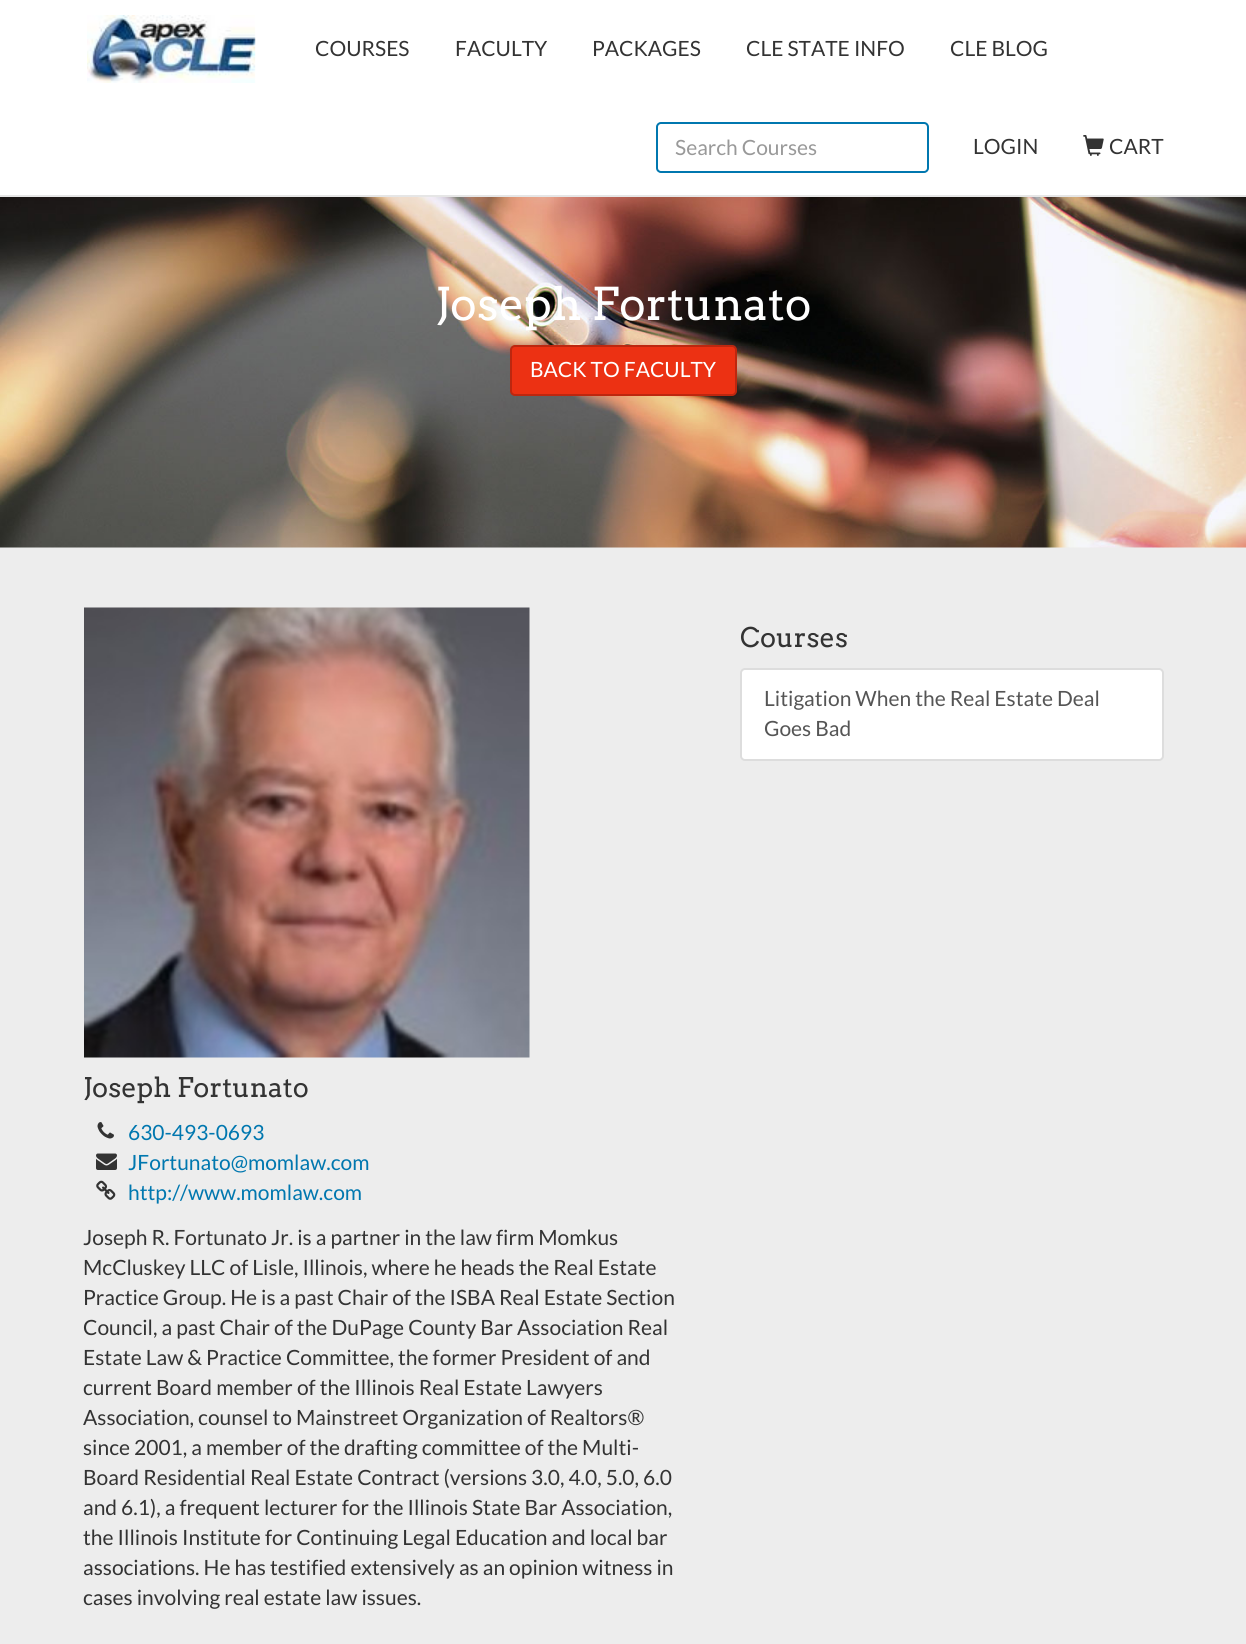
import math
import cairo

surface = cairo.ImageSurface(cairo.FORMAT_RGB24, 1246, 1644)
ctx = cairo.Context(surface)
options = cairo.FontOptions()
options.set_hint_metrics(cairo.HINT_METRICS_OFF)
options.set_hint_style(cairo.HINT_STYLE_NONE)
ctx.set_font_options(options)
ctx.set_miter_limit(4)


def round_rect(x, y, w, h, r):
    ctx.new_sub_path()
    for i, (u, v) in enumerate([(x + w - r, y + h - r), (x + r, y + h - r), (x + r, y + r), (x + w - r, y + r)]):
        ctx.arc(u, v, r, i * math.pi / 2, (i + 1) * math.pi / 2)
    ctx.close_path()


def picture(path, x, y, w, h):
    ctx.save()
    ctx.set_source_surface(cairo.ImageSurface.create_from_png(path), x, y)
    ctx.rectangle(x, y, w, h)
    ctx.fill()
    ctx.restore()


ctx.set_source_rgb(0.929, 0.929, 0.929)
ctx.paint()
ctx.set_source_rgb(1, 1, 1)
ctx.rectangle(0, 0, 1246, 195)
ctx.fill()
ctx.set_source_rgb(0.902, 0.902, 0.902)
ctx.rectangle(0, 195, 1246, 2)
ctx.fill()
picture("img1.png", 87, 15, 169, 68)
ctx.select_font_face("Lato")
ctx.set_font_size(21)
ctx.set_source_rgb(0.2, 0.2, 0.2)
ctx.move_to(315, 56)
ctx.show_text("COURSES")
ctx.move_to(455, 56)
ctx.show_text("FACULTY")
ctx.move_to(592, 56)
ctx.show_text("PACKAGES")
ctx.move_to(746, 56)
ctx.show_text("CLE STATE INFO")
ctx.move_to(950, 56)
ctx.show_text("CLE BLOG")
ctx.set_source_rgb(0.925, 0.925, 0.925)
ctx.new_path()
ctx.move_to(660, 124)
ctx.line_to(924, 124)
ctx.curve_to(926, 124, 927, 126, 927, 128)
ctx.line_to(927, 126)
ctx.curve_to(927, 124, 926, 123, 924, 123)
ctx.line_to(660, 123)
ctx.curve_to(658, 123, 657, 124, 657, 126)
ctx.line_to(657, 128)
ctx.curve_to(657, 126, 658, 124, 660, 124)
ctx.close_path()
ctx.fill()
round_rect(657, 123, 271, 49, 4)
ctx.set_source_rgb(0, 0.467, 0.686)
ctx.stroke()
ctx.set_source_rgb(0.6, 0.6, 0.6)
ctx.move_to(675, 155)
ctx.show_text("Search Courses")
ctx.set_source_rgb(0.2, 0.2, 0.2)
ctx.move_to(973, 154)
ctx.show_text("LOGIN")
picture("img2.png", 1083, 135, 21, 21)
ctx.move_to(1109, 154)
ctx.show_text("CART")
picture("img3.png", 0, 197, 1246, 351)
ctx.select_font_face("Arvo")
ctx.set_font_size(45)
ctx.set_source_rgb(1, 1, 1)
ctx.move_to(435, 320)
ctx.show_text("Joseph Fortunato")
ctx.set_source_rgb(0.925, 0.192, 0.075)
round_rect(511, 346, 225, 49, 4)
ctx.fill_preserve()
ctx.set_source_rgb(0.741, 0.153, 0.059)
ctx.stroke()
ctx.select_font_face("Lato")
ctx.set_font_size(21)
ctx.set_source_rgb(1, 1, 1)
ctx.move_to(530, 377)
ctx.show_text("BACK TO FACULTY")
ctx.select_font_face("Arvo")
ctx.set_font_size(27)
ctx.set_source_rgb(0.2, 0.2, 0.2)
ctx.move_to(740, 647)
ctx.show_text("Courses")
ctx.set_source_rgb(1, 1, 1)
round_rect(741, 669, 422, 91, 4)
ctx.fill_preserve()
ctx.set_source_rgb(0.867, 0.867, 0.867)
ctx.stroke()
ctx.select_font_face("Lato")
ctx.set_font_size(21)
ctx.set_source_rgb(0.333, 0.333, 0.333)
ctx.move_to(764, 706)
ctx.show_text("Litigation When the Real Estate Deal")
ctx.move_to(764, 736)
ctx.show_text("Goes Bad")
picture("img4.png", 84, 607, 446, 451)
ctx.select_font_face("Arvo")
ctx.set_font_size(27)
ctx.set_source_rgb(0.2, 0.2, 0.2)
ctx.move_to(83, 1097)
ctx.show_text("Joseph Fortunato")
picture("img5.png", 97, 1122, 17, 17)
ctx.select_font_face("Lato")
ctx.set_font_size(21)
ctx.set_source_rgb(0, 0.467, 0.686)
ctx.move_to(128, 1140)
ctx.show_text("630-493-0693")
picture("img6.png", 96, 1153, 21, 17)
ctx.move_to(128, 1170)
ctx.show_text("JFortunato@momlaw.com")
picture("img7.png", 96, 1180, 20, 20)
ctx.move_to(128, 1200)
ctx.show_text("http://www.momlaw.com")
ctx.set_source_rgb(0.2, 0.2, 0.2)
ctx.move_to(83, 1245)
ctx.show_text("Joseph R. Fortunato Jr. is a partner in the law firm Momkus")
ctx.move_to(83, 1275)
ctx.show_text("McCluskey LLC of Lisle, Illinois, where he heads the Real Estate")
ctx.move_to(83, 1305)
ctx.show_text("Practice Group. He is a past Chair of the ISBA Real Estate Section")
ctx.move_to(83, 1335)
ctx.show_text("Council, a past Chair of the DuPage County Bar Association Real")
ctx.move_to(83, 1365)
ctx.show_text("Estate Law & Practice Committee, the former President of and")
ctx.move_to(83, 1395)
ctx.show_text("current Board member of the Illinois Real Estate Lawyers")
ctx.move_to(83, 1425)
ctx.show_text("Association, counsel to Mainstreet Organization of Realtors®")
ctx.move_to(83, 1455)
ctx.show_text("since 2001, a member of the drafting committee of the Multi-")
ctx.move_to(83, 1485)
ctx.show_text("Board Residential Real Estate Contract (versions 3.0, 4.0, 5.0, 6.0")
ctx.move_to(83, 1515)
ctx.show_text("and 6.1), a frequent lecturer for the Illinois State Bar Association,")
ctx.move_to(83, 1545)
ctx.show_text("the Illinois Institute for Continuing Legal Education and local bar")
ctx.move_to(83, 1575)
ctx.show_text("associations. He has testified extensively as an opinion witness in")
ctx.move_to(83, 1605)
ctx.show_text("cases involving real estate law issues.")
surface.write_to_png("page.png")
